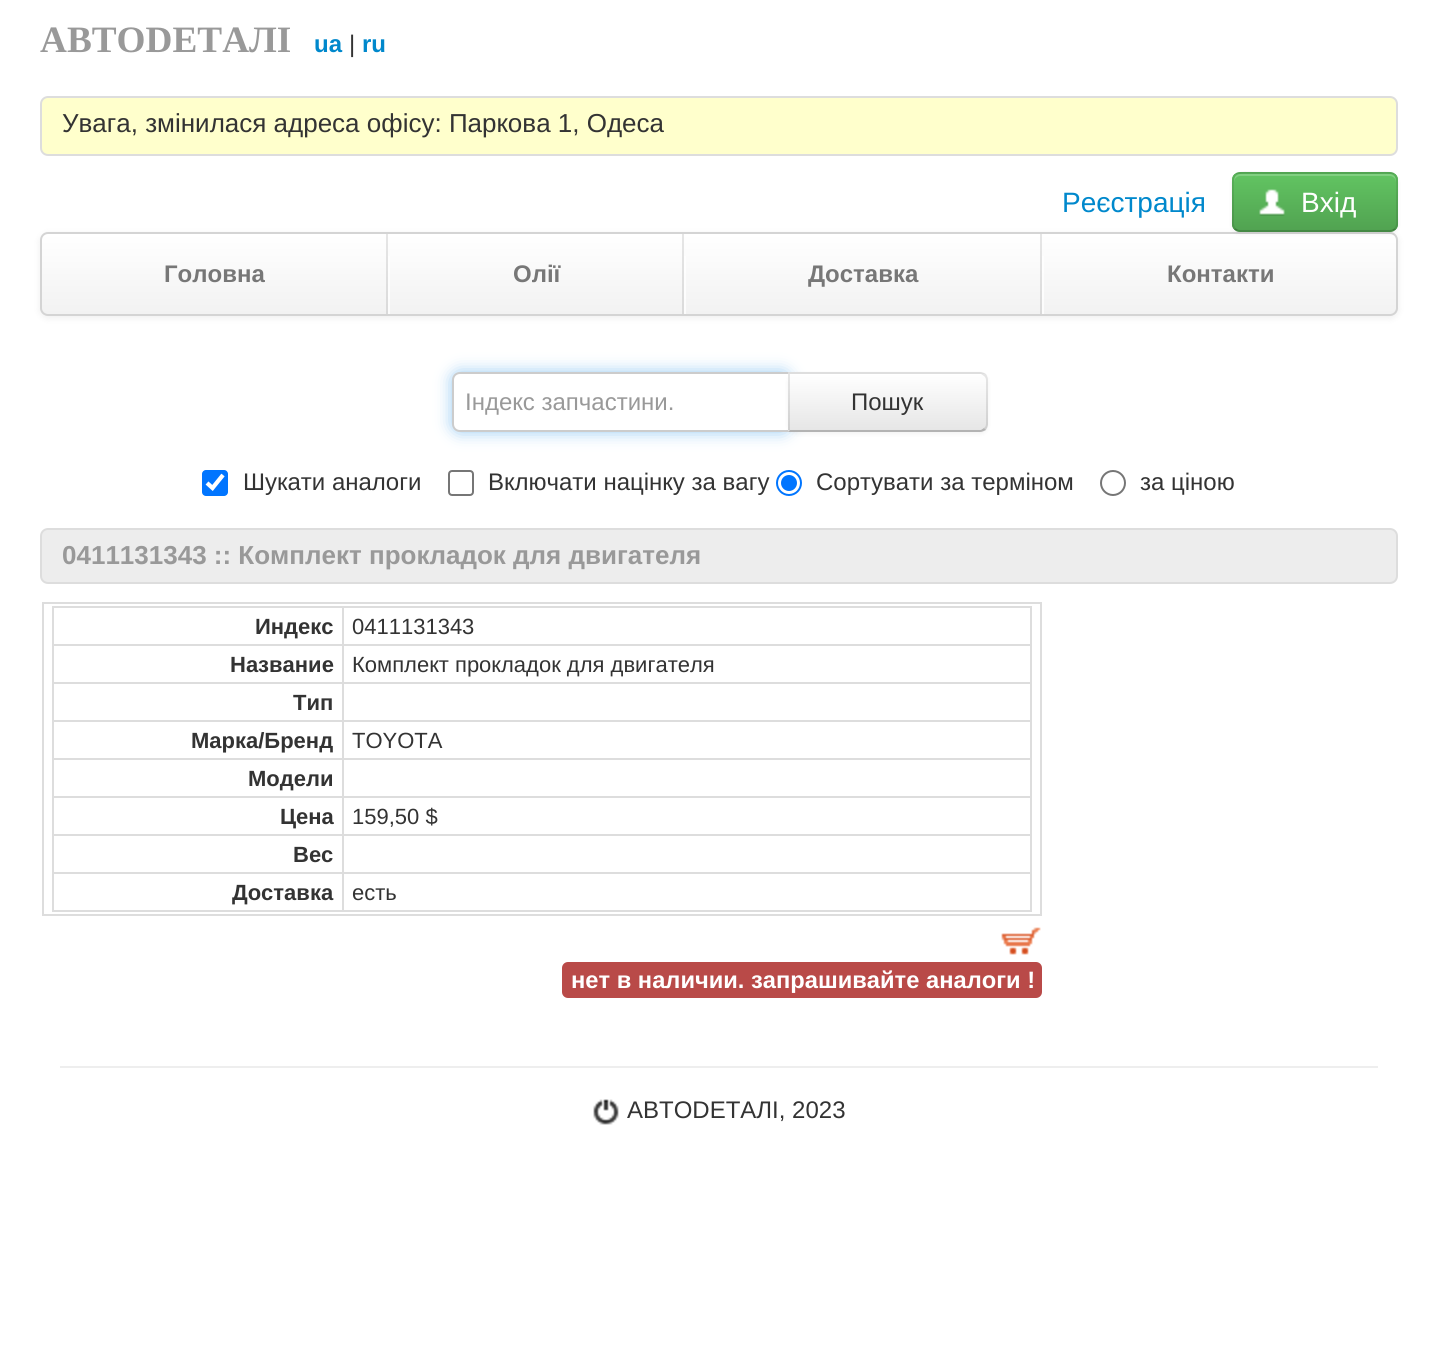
import math
import cairo

surface = cairo.ImageSurface(cairo.FORMAT_RGB24, 1438, 1357)
ctx = cairo.Context(surface)
options = cairo.FontOptions()
options.set_hint_metrics(cairo.HINT_METRICS_OFF)
options.set_hint_style(cairo.HINT_STYLE_NONE)
ctx.set_font_options(options)
ctx.set_miter_limit(4)


def round_rect(x, y, w, h, r):
    ctx.new_sub_path()
    for i, (u, v) in enumerate([(x + w - r, y + h - r), (x + r, y + h - r), (x + r, y + r), (x + w - r, y + r)]):
        ctx.arc(u, v, r, i * math.pi / 2, (i + 1) * math.pi / 2)
    ctx.close_path()


def shadow(x, y, w, h, r, blur, alpha):
    ctx.push_group_with_content(cairo.CONTENT_ALPHA)
    ctx.set_operator(cairo.OPERATOR_SOURCE)
    for i in range(15, -16, -2):
        e = blur * i / 6
        if min(w, h) + 2 * e > 0:
            ctx.set_source_rgba(0, 0, 0, alpha * math.erfc((i - 1) / 8.5) / 2)
            round_rect(x - e, y - e, w + 2 * e, h + 2 * e, max(0, min(r + e + blur * .6, min(w, h) / 2 + e)))
            ctx.fill()
    ctx.mask(ctx.pop_group())


def picture(path, x, y, w, h):
    ctx.save()
    ctx.set_source_surface(cairo.ImageSurface.create_from_png(path), x, y)
    ctx.rectangle(x, y, w, h)
    ctx.fill()
    ctx.restore()


ctx.set_source_rgb(1, 1, 1)
ctx.paint()
ctx.select_font_face("Liberation Serif", cairo.FONT_SLANT_NORMAL, cairo.FONT_WEIGHT_BOLD)
ctx.set_font_size(37.25)
ctx.set_source_rgb(0.6, 0.6, 0.6)
ctx.move_to(40, 52)
ctx.show_text("АBТОDЕТАЛI")
ctx.select_font_face("Liberation Sans", cairo.FONT_SLANT_NORMAL, cairo.FONT_WEIGHT_BOLD)
ctx.set_font_size(24)
ctx.set_source_rgb(0, 0.533, 0.8)
ctx.move_to(314, 52)
ctx.show_text("ua")
ctx.select_font_face("Liberation Sans")
ctx.set_source_rgb(0.2, 0.2, 0.2)
ctx.move_to(349, 52)
ctx.show_text("|")
ctx.select_font_face("Liberation Sans", cairo.FONT_SLANT_NORMAL, cairo.FONT_WEIGHT_BOLD)
ctx.set_source_rgb(0, 0.533, 0.8)
ctx.move_to(362, 52)
ctx.show_text("ru")
ctx.set_source_rgb(1, 1, 0.8)
round_rect(41, 97, 1356, 58, 7)
ctx.fill_preserve()
ctx.set_source_rgb(0.867, 0.867, 0.867)
ctx.stroke()
ctx.select_font_face("Liberation Sans")
ctx.set_font_size(26)
ctx.set_source_rgb(0.2, 0.2, 0.2)
ctx.move_to(62, 132)
ctx.show_text("Увага, змінилася адреса офісу: Паркова 1, Одеса")
ctx.set_font_size(28)
ctx.set_source_rgb(0, 0.533, 0.8)
ctx.move_to(1062, 212)
ctx.show_text("Реєстрація")
ctx.set_source_rgb(0, 0, 0)
shadow(40, 234, 1358, 84, 8, 4, 0.07)
ctx.save()
round_rect(40, 232, 1358, 84, 8)
ctx.clip()
gradient = cairo.LinearGradient(719, 234, 719, 314)
gradient.add_color_stop_rgba(0, 1, 1, 1, 1)
gradient.add_color_stop_rgba(1, 0.949, 0.949, 0.949, 1)
ctx.set_source(gradient)
ctx.rectangle(40, 234, 1358, 80)
ctx.fill()
ctx.restore()
gradient = cairo.LinearGradient(719, 234, 719, 314)
gradient.add_color_stop_rgba(0, 1, 1, 1, 1)
gradient.add_color_stop_rgba(1, 0.988, 0.988, 0.988, 1)
ctx.set_source(gradient)
ctx.rectangle(1042, 256, 2, 58)
ctx.fill()
ctx.rectangle(684, 256, 2, 58)
ctx.fill()
gradient = cairo.LinearGradient(719, 234, 719, 314)
gradient.add_color_stop_rgba(0, 0.902, 0.902, 0.902, 1)
gradient.add_color_stop_rgba(1, 0.855, 0.855, 0.855, 1)
ctx.set_source(gradient)
ctx.rectangle(1040, 234, 2, 80)
ctx.fill()
gradient = cairo.LinearGradient(719, 234, 719, 314)
gradient.add_color_stop_rgba(0, 1, 1, 1, 1)
gradient.add_color_stop_rgba(1, 0.988, 0.988, 0.988, 1)
ctx.set_source(gradient)
ctx.rectangle(388, 256, 2, 58)
ctx.fill()
gradient = cairo.LinearGradient(719, 234, 719, 314)
gradient.add_color_stop_rgba(0, 0.902, 0.902, 0.902, 1)
gradient.add_color_stop_rgba(1, 0.855, 0.855, 0.855, 1)
ctx.set_source(gradient)
ctx.rectangle(682, 234, 2, 80)
ctx.fill()
ctx.rectangle(386, 234, 2, 80)
ctx.fill()
round_rect(41, 233, 1356, 82, 7)
ctx.set_source_rgb(0.831, 0.831, 0.831)
ctx.stroke()
ctx.set_source_rgb(0, 0, 0)
shadow(1232, 174, 166, 60, 8, 2, 0.05)
ctx.set_source_rgb(0.357, 0.718, 0.357)
round_rect(1232, 172, 166, 60, 8)
ctx.fill()
ctx.save()
round_rect(1232, 172, 166, 60, 8)
ctx.clip()
gradient = cairo.LinearGradient(1315, 174, 1315, 230)
gradient.add_color_stop_rgba(0, 0.384, 0.769, 0.384, 1)
gradient.add_color_stop_rgba(1, 0.318, 0.639, 0.318, 1)
ctx.set_source(gradient)
ctx.rectangle(1232, 174, 166, 56)
ctx.fill()
ctx.restore()
ctx.set_source_rgba(1, 1, 1, 0.2)
ctx.new_path()
ctx.move_to(1240, 176)
ctx.line_to(1390, 176)
ctx.curve_to(1393, 176, 1396, 179, 1396, 182)
ctx.line_to(1396, 180)
ctx.curve_to(1396, 177, 1393, 174, 1390, 174)
ctx.line_to(1240, 174)
ctx.curve_to(1237, 174, 1234, 177, 1234, 180)
ctx.line_to(1234, 182)
ctx.curve_to(1234, 179, 1237, 176, 1240, 176)
ctx.close_path()
ctx.fill()
ctx.new_path()
ctx.move_to(1395, 229)
ctx.curve_to(1393.5, 230.5, 1392, 231, 1390, 231)
ctx.line_to(1240, 231)
ctx.curve_to(1238, 231, 1236.5, 230.5, 1235, 229)
ctx.set_source_rgba(0, 0, 0, 0.25)
ctx.stroke()
ctx.new_path()
ctx.move_to(1235, 229)
ctx.curve_to(1232, 226, 1233, 220.5, 1233, 216.5)
ctx.line_to(1233, 202)
ctx.curve_to(1233, 168, 1228.5, 173, 1265, 173)
ctx.line_to(1365, 173)
ctx.curve_to(1401.5, 173, 1397, 168, 1397, 202)
ctx.line_to(1397, 216.5)
ctx.curve_to(1397, 220.5, 1398, 226, 1395, 229)
ctx.set_source_rgba(0, 0, 0, 0.1)
ctx.stroke()
picture("img1.png", 1259, 189, 26, 27)
ctx.set_source_rgb(1, 1, 1)
ctx.move_to(1301, 212)
ctx.show_text("Вхід")
ctx.select_font_face("Liberation Sans", cairo.FONT_SLANT_NORMAL, cairo.FONT_WEIGHT_BOLD)
ctx.set_font_size(24)
ctx.set_source_rgb(0.467, 0.467, 0.467)
ctx.move_to(164, 282)
ctx.show_text("Головна")
ctx.move_to(513, 282)
ctx.show_text("Олії")
ctx.move_to(808, 282)
ctx.show_text("Доставка")
ctx.move_to(1167, 282)
ctx.show_text("Контакти")
ctx.set_source_rgb(0.322, 0.659, 0.925)
shadow(452, 372, 338, 60, 8, 8, 0.6)
ctx.set_source_rgb(1, 1, 1)
ctx.new_path()
ctx.move_to(460, 373)
ctx.line_to(789, 373)
ctx.line_to(789, 431)
ctx.line_to(460, 431)
ctx.curve_to(456, 431, 453, 428, 453, 424)
ctx.line_to(453, 380)
ctx.curve_to(453, 376, 456, 373, 460, 373)
ctx.close_path()
ctx.fill_preserve()
ctx.set_source_rgb(0.8, 0.8, 0.8)
ctx.stroke()
ctx.select_font_face("Liberation Sans")
ctx.set_source_rgb(0.6, 0.6, 0.6)
ctx.move_to(465, 410)
ctx.show_text("Індекс запчастини.")
ctx.set_source_rgb(0, 0, 0)
shadow(788, 374, 200, 60, 8, 2, 0.05)
ctx.set_source_rgb(0.961, 0.961, 0.961)
ctx.new_path()
ctx.move_to(788, 372)
ctx.line_to(980, 372)
ctx.curve_to(984.5, 372, 988, 375.5, 988, 380)
ctx.line_to(988, 424)
ctx.curve_to(988, 428.5, 984.5, 432, 980, 432)
ctx.line_to(788, 432)
ctx.close_path()
ctx.fill()
ctx.save()
ctx.new_path()
ctx.move_to(788, 372)
ctx.line_to(980, 372)
ctx.curve_to(984.5, 372, 988, 375.5, 988, 380)
ctx.line_to(988, 424)
ctx.curve_to(988, 428.5, 984.5, 432, 980, 432)
ctx.line_to(788, 432)
ctx.close_path()
ctx.clip()
gradient = cairo.LinearGradient(888, 374, 888, 430)
gradient.add_color_stop_rgba(0, 1, 1, 1, 1)
gradient.add_color_stop_rgba(1, 0.902, 0.902, 0.902, 1)
ctx.set_source(gradient)
ctx.rectangle(788, 374, 200, 56)
ctx.fill()
ctx.restore()
ctx.set_source_rgba(0, 0, 0, 0.1)
ctx.new_path()
ctx.move_to(788, 372)
ctx.line_to(790, 374)
ctx.line_to(981, 374)
ctx.line_to(984, 376)
ctx.line_to(986, 374)
ctx.curve_to(984, 373, 982, 372, 980, 372)
ctx.close_path()
ctx.fill()
ctx.new_path()
ctx.move_to(988, 424)
ctx.line_to(988, 380)
ctx.curve_to(988, 378, 987, 376, 986, 374)
ctx.line_to(984, 376)
ctx.curve_to(985, 377, 986, 378, 986, 380)
ctx.line_to(986, 424)
ctx.curve_to(986, 426, 985, 427, 984, 428)
ctx.line_to(986, 430)
ctx.curve_to(987, 428, 988, 426, 988, 424)
ctx.close_path()
ctx.fill()
ctx.set_source_rgb(0.702, 0.702, 0.702)
ctx.new_path()
ctx.move_to(980, 432)
ctx.curve_to(982, 432, 984, 431, 986, 430)
ctx.line_to(984, 428)
ctx.line_to(981, 430)
ctx.line_to(790, 430)
ctx.line_to(788, 432)
ctx.close_path()
ctx.fill()
ctx.set_source_rgba(0, 0, 0, 0.1)
ctx.new_path()
ctx.move_to(788, 372)
ctx.line_to(788, 432)
ctx.line_to(790, 430)
ctx.line_to(790, 374)
ctx.close_path()
ctx.fill()
ctx.set_source_rgb(0.2, 0.2, 0.2)
ctx.move_to(851, 410)
ctx.show_text("Пошук")
ctx.set_source_rgb(0, 0.459, 1)
round_rect(202, 470, 26, 26, 4)
ctx.fill()
ctx.new_path()
ctx.move_to(207, 483)
ctx.line_to(212.5, 488)
ctx.line_to(223, 475)
ctx.set_source_rgb(1, 1, 1)
ctx.set_line_width(4.2)
ctx.stroke()
ctx.set_source_rgb(0.2, 0.2, 0.2)
ctx.move_to(243, 490)
ctx.show_text("Шукати аналоги")
round_rect(449, 471, 24, 24, 3)
ctx.set_source_rgb(0.463, 0.463, 0.463)
ctx.set_line_width(2)
ctx.stroke()
ctx.set_source_rgb(0.2, 0.2, 0.2)
ctx.move_to(488, 490)
ctx.show_text("Включати націнку за вагу")
ctx.new_path()
ctx.arc(789, 483, 12, 0, 2 * math.pi)
ctx.set_source_rgb(0, 0.459, 1)
ctx.stroke()
ctx.arc(789, 483, 8, 0, 2 * math.pi)
ctx.fill()
ctx.set_source_rgb(0.2, 0.2, 0.2)
ctx.move_to(816, 490)
ctx.show_text("Сортувати за терміном")
ctx.new_path()
ctx.arc(1113, 483, 12, 0, 2 * math.pi)
ctx.set_source_rgb(0.463, 0.463, 0.463)
ctx.stroke()
ctx.set_source_rgb(0.2, 0.2, 0.2)
ctx.move_to(1140, 490)
ctx.show_text("за ціною")
ctx.set_source_rgb(0.929, 0.929, 0.929)
round_rect(41, 529, 1356, 54, 7)
ctx.fill_preserve()
ctx.set_source_rgb(0.867, 0.867, 0.867)
ctx.stroke()
ctx.select_font_face("Liberation Sans", cairo.FONT_SLANT_NORMAL, cairo.FONT_WEIGHT_BOLD)
ctx.set_font_size(26)
ctx.set_source_rgb(0.6, 0.6, 0.6)
ctx.move_to(62, 564)
ctx.show_text("0411131343 :: Комплект прокладок для двигателя")
ctx.set_source_rgb(0.867, 0.867, 0.867)
ctx.rectangle(42, 602, 1000, 2)
ctx.fill()
ctx.rectangle(1040, 602, 2, 314)
ctx.fill()
ctx.rectangle(42, 914, 1000, 2)
ctx.fill()
ctx.rectangle(42, 602, 2, 314)
ctx.fill()
ctx.rectangle(342, 606, 690, 2)
ctx.fill()
ctx.rectangle(342, 644, 690, 2)
ctx.fill()
ctx.rectangle(342, 682, 690, 2)
ctx.fill()
ctx.rectangle(342, 720, 690, 2)
ctx.fill()
ctx.rectangle(342, 758, 690, 2)
ctx.fill()
ctx.rectangle(342, 796, 690, 2)
ctx.fill()
ctx.rectangle(342, 834, 690, 2)
ctx.fill()
ctx.rectangle(342, 872, 690, 2)
ctx.fill()
ctx.rectangle(1030, 872, 2, 40)
ctx.fill()
ctx.rectangle(342, 910, 690, 2)
ctx.fill()
ctx.rectangle(342, 872, 2, 40)
ctx.fill()
ctx.rectangle(52, 872, 292, 2)
ctx.fill()
ctx.rectangle(342, 834, 2, 40)
ctx.fill()
ctx.rectangle(52, 834, 292, 2)
ctx.fill()
ctx.rectangle(342, 796, 2, 40)
ctx.fill()
ctx.rectangle(52, 796, 292, 2)
ctx.fill()
ctx.rectangle(342, 758, 2, 40)
ctx.fill()
ctx.rectangle(52, 758, 292, 2)
ctx.fill()
ctx.rectangle(342, 720, 2, 40)
ctx.fill()
ctx.rectangle(52, 720, 292, 2)
ctx.fill()
ctx.rectangle(342, 682, 2, 40)
ctx.fill()
ctx.rectangle(52, 682, 292, 2)
ctx.fill()
ctx.rectangle(342, 644, 2, 40)
ctx.fill()
ctx.rectangle(52, 644, 292, 2)
ctx.fill()
ctx.rectangle(342, 606, 2, 40)
ctx.fill()
ctx.rectangle(52, 606, 292, 2)
ctx.fill()
ctx.rectangle(52, 910, 292, 2)
ctx.fill()
ctx.rectangle(52, 872, 2, 40)
ctx.fill()
ctx.rectangle(52, 834, 2, 40)
ctx.fill()
ctx.rectangle(52, 796, 2, 40)
ctx.fill()
ctx.rectangle(52, 758, 2, 40)
ctx.fill()
ctx.rectangle(52, 720, 2, 40)
ctx.fill()
ctx.rectangle(52, 682, 2, 40)
ctx.fill()
ctx.rectangle(52, 644, 2, 40)
ctx.fill()
ctx.rectangle(52, 606, 2, 40)
ctx.fill()
ctx.set_font_size(22)
ctx.set_source_rgb(0.2, 0.2, 0.2)
ctx.move_to(255, 634)
ctx.show_text("Индекс")
ctx.set_source_rgb(0.867, 0.867, 0.867)
ctx.rectangle(1030, 834, 2, 40)
ctx.fill()
ctx.rectangle(1030, 796, 2, 40)
ctx.fill()
ctx.rectangle(1030, 758, 2, 40)
ctx.fill()
ctx.rectangle(1030, 720, 2, 40)
ctx.fill()
ctx.rectangle(1030, 682, 2, 40)
ctx.fill()
ctx.rectangle(1030, 644, 2, 40)
ctx.fill()
ctx.rectangle(1030, 606, 2, 40)
ctx.fill()
ctx.select_font_face("Liberation Sans")
ctx.set_source_rgb(0.2, 0.2, 0.2)
ctx.move_to(352, 634)
ctx.show_text("0411131343")
ctx.select_font_face("Liberation Sans", cairo.FONT_SLANT_NORMAL, cairo.FONT_WEIGHT_BOLD)
ctx.move_to(230, 672)
ctx.show_text("Название")
ctx.select_font_face("Liberation Sans")
ctx.move_to(352, 672)
ctx.show_text("Комплект прокладок для двигателя")
ctx.select_font_face("Liberation Sans", cairo.FONT_SLANT_NORMAL, cairo.FONT_WEIGHT_BOLD)
ctx.move_to(293, 710)
ctx.show_text("Тип")
ctx.move_to(191, 748)
ctx.show_text("Марка/Бренд")
ctx.select_font_face("Liberation Sans")
ctx.move_to(352, 748)
ctx.show_text("TOYOTA")
ctx.select_font_face("Liberation Sans", cairo.FONT_SLANT_NORMAL, cairo.FONT_WEIGHT_BOLD)
ctx.move_to(248, 786)
ctx.show_text("Модели")
ctx.move_to(280, 824)
ctx.show_text("Цена")
ctx.select_font_face("Liberation Sans")
ctx.move_to(352, 824)
ctx.show_text("159,50 $")
ctx.select_font_face("Liberation Sans", cairo.FONT_SLANT_NORMAL, cairo.FONT_WEIGHT_BOLD)
ctx.move_to(293, 862)
ctx.show_text("Вес")
ctx.move_to(232, 900)
ctx.show_text("Доставка")
ctx.select_font_face("Liberation Sans")
ctx.move_to(352, 900)
ctx.show_text("есть")
picture("img2.png", 1001, 927, 40, 28)
ctx.set_source_rgb(0.725, 0.29, 0.282)
round_rect(562, 962, 480, 36, 6)
ctx.fill()
ctx.select_font_face("Liberation Sans", cairo.FONT_SLANT_NORMAL, cairo.FONT_WEIGHT_BOLD)
ctx.set_font_size(23.7)
ctx.set_source_rgb(1, 1, 1)
ctx.move_to(571, 988)
ctx.show_text("нет в наличии. запрашивайте аналоги !")
ctx.set_source_rgb(0.933, 0.933, 0.933)
ctx.rectangle(60, 1066, 1318, 2)
ctx.fill()
picture("img3.png", 593, 1099, 26, 26)
ctx.select_font_face("Liberation Sans")
ctx.set_font_size(24)
ctx.set_source_rgb(0.2, 0.2, 0.2)
ctx.move_to(627, 1118)
ctx.show_text("АBТОDЕТАЛI, 2023")
surface.write_to_png("page.png")
